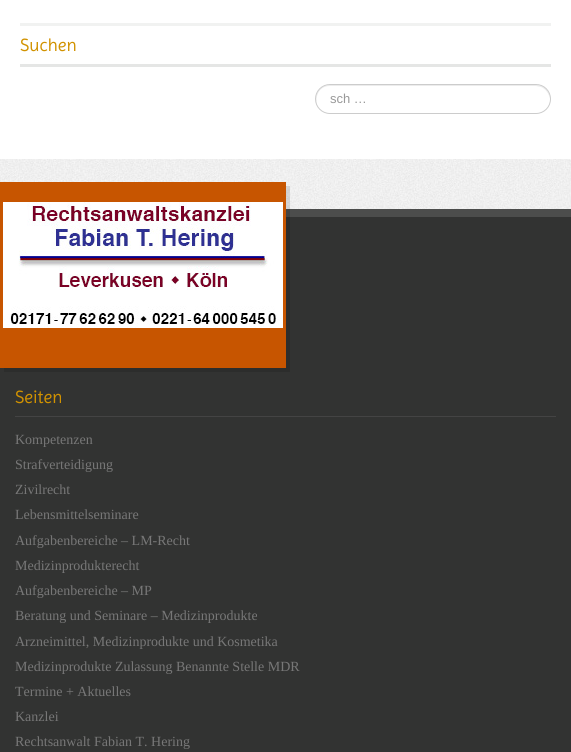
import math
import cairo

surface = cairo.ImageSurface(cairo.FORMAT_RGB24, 571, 752)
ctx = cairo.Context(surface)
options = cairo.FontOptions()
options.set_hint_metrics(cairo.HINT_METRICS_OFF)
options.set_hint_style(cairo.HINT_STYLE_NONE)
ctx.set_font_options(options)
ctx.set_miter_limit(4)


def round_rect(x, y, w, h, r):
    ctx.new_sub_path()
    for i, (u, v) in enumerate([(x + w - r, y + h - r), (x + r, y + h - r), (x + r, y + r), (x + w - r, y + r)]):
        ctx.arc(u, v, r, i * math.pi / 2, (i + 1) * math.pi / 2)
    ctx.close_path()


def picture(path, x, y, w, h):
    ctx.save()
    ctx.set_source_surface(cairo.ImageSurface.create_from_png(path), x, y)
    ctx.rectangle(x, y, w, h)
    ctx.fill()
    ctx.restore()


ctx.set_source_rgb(1, 1, 1)
ctx.paint()
picture("img1.png", 0, 159, 571, 50)
ctx.set_source_rgb(0.945, 0.949, 0.945)
ctx.rectangle(20, 23, 531, 3)
ctx.fill()
ctx.set_source_rgb(0.898, 0.902, 0.898)
ctx.rectangle(20, 64, 531, 3)
ctx.fill()
ctx.select_font_face("Imprima")
ctx.set_font_size(18)
ctx.set_source_rgb(0.82, 0.573, 0)
ctx.move_to(20, 51)
ctx.show_text("Suchen")
ctx.set_source_rgb(0.925, 0.925, 0.925)
ctx.new_path()
ctx.move_to(330, 86)
ctx.line_to(536, 86)
ctx.line_to(541, 87)
ctx.curve_to(546, 89, 549, 94, 550, 99)
ctx.curve_to(550, 91, 544, 85, 536, 85)
ctx.line_to(330, 85)
ctx.curve_to(322, 85, 316, 91, 316, 99)
ctx.curve_to(316, 101, 316, 103, 317, 105)
ctx.curve_to(315, 96, 319, 86, 330, 86)
ctx.close_path()
ctx.fill()
round_rect(315.5, 84.5, 235, 29, 14.5)
ctx.set_source_rgb(0.8, 0.8, 0.8)
ctx.set_line_width(1)
ctx.stroke()
ctx.select_font_face("Liberation Sans")
ctx.set_font_size(13)
ctx.set_source_rgb(0.6, 0.6, 0.6)
ctx.move_to(330, 103)
ctx.show_text("sch …")
ctx.set_source_rgb(0.196, 0.2, 0.196)
ctx.rectangle(0, 217, 571, 535)
ctx.fill()
ctx.set_source_rgb(0.298, 0.302, 0.298)
ctx.rectangle(286, 209, 285, 8)
ctx.fill()
ctx.set_source_rgba(0, 0, 0, 0.12)
ctx.new_path()
ctx.move_to(4, 368)
ctx.line_to(4, 372)
ctx.line_to(290, 372)
ctx.line_to(290, 186)
ctx.line_to(286, 186)
ctx.line_to(286, 368)
ctx.close_path()
ctx.fill()
ctx.set_source_rgb(0.78, 0.333, 0)
ctx.rectangle(0, 182, 286, 186)
ctx.fill()
picture("img2.png", 3, 202, 280, 126)
ctx.set_source_rgb(0.267, 0.267, 0.267)
ctx.rectangle(15, 416, 541, 1)
ctx.fill()
ctx.select_font_face("Imprima")
ctx.set_font_size(18)
ctx.set_source_rgb(0.82, 0.573, 0)
ctx.move_to(15, 403)
ctx.show_text("Seiten")
ctx.select_font_face("Liberation Serif")
ctx.set_font_size(14)
ctx.set_source_rgb(0.467, 0.467, 0.467)
ctx.move_to(15, 444)
ctx.show_text("Kompetenzen")
ctx.move_to(15, 469)
ctx.show_text("Strafverteidigung")
ctx.move_to(15, 494)
ctx.show_text("Zivilrecht")
ctx.move_to(15, 519)
ctx.show_text("Lebensmittelseminare")
ctx.move_to(15, 545)
ctx.show_text("Aufgabenbereiche – LM-Recht")
ctx.move_to(15, 570)
ctx.show_text("Medizinprodukterecht")
ctx.move_to(15, 595)
ctx.show_text("Aufgabenbereiche – MP")
ctx.move_to(15, 620)
ctx.show_text("Beratung und Seminare – Medizinprodukte")
ctx.move_to(15, 646)
ctx.show_text("Arzneimittel, Medizinprodukte und Kosmetika")
ctx.move_to(15, 671)
ctx.show_text("Medizinprodukte Zulassung Benannte Stelle MDR")
ctx.move_to(15, 696)
ctx.show_text("Termine + Aktuelles")
ctx.move_to(15, 721)
ctx.show_text("Kanzlei")
ctx.move_to(15, 746)
ctx.show_text("Rechtsanwalt Fabian T. Hering")
surface.write_to_png("page.png")
